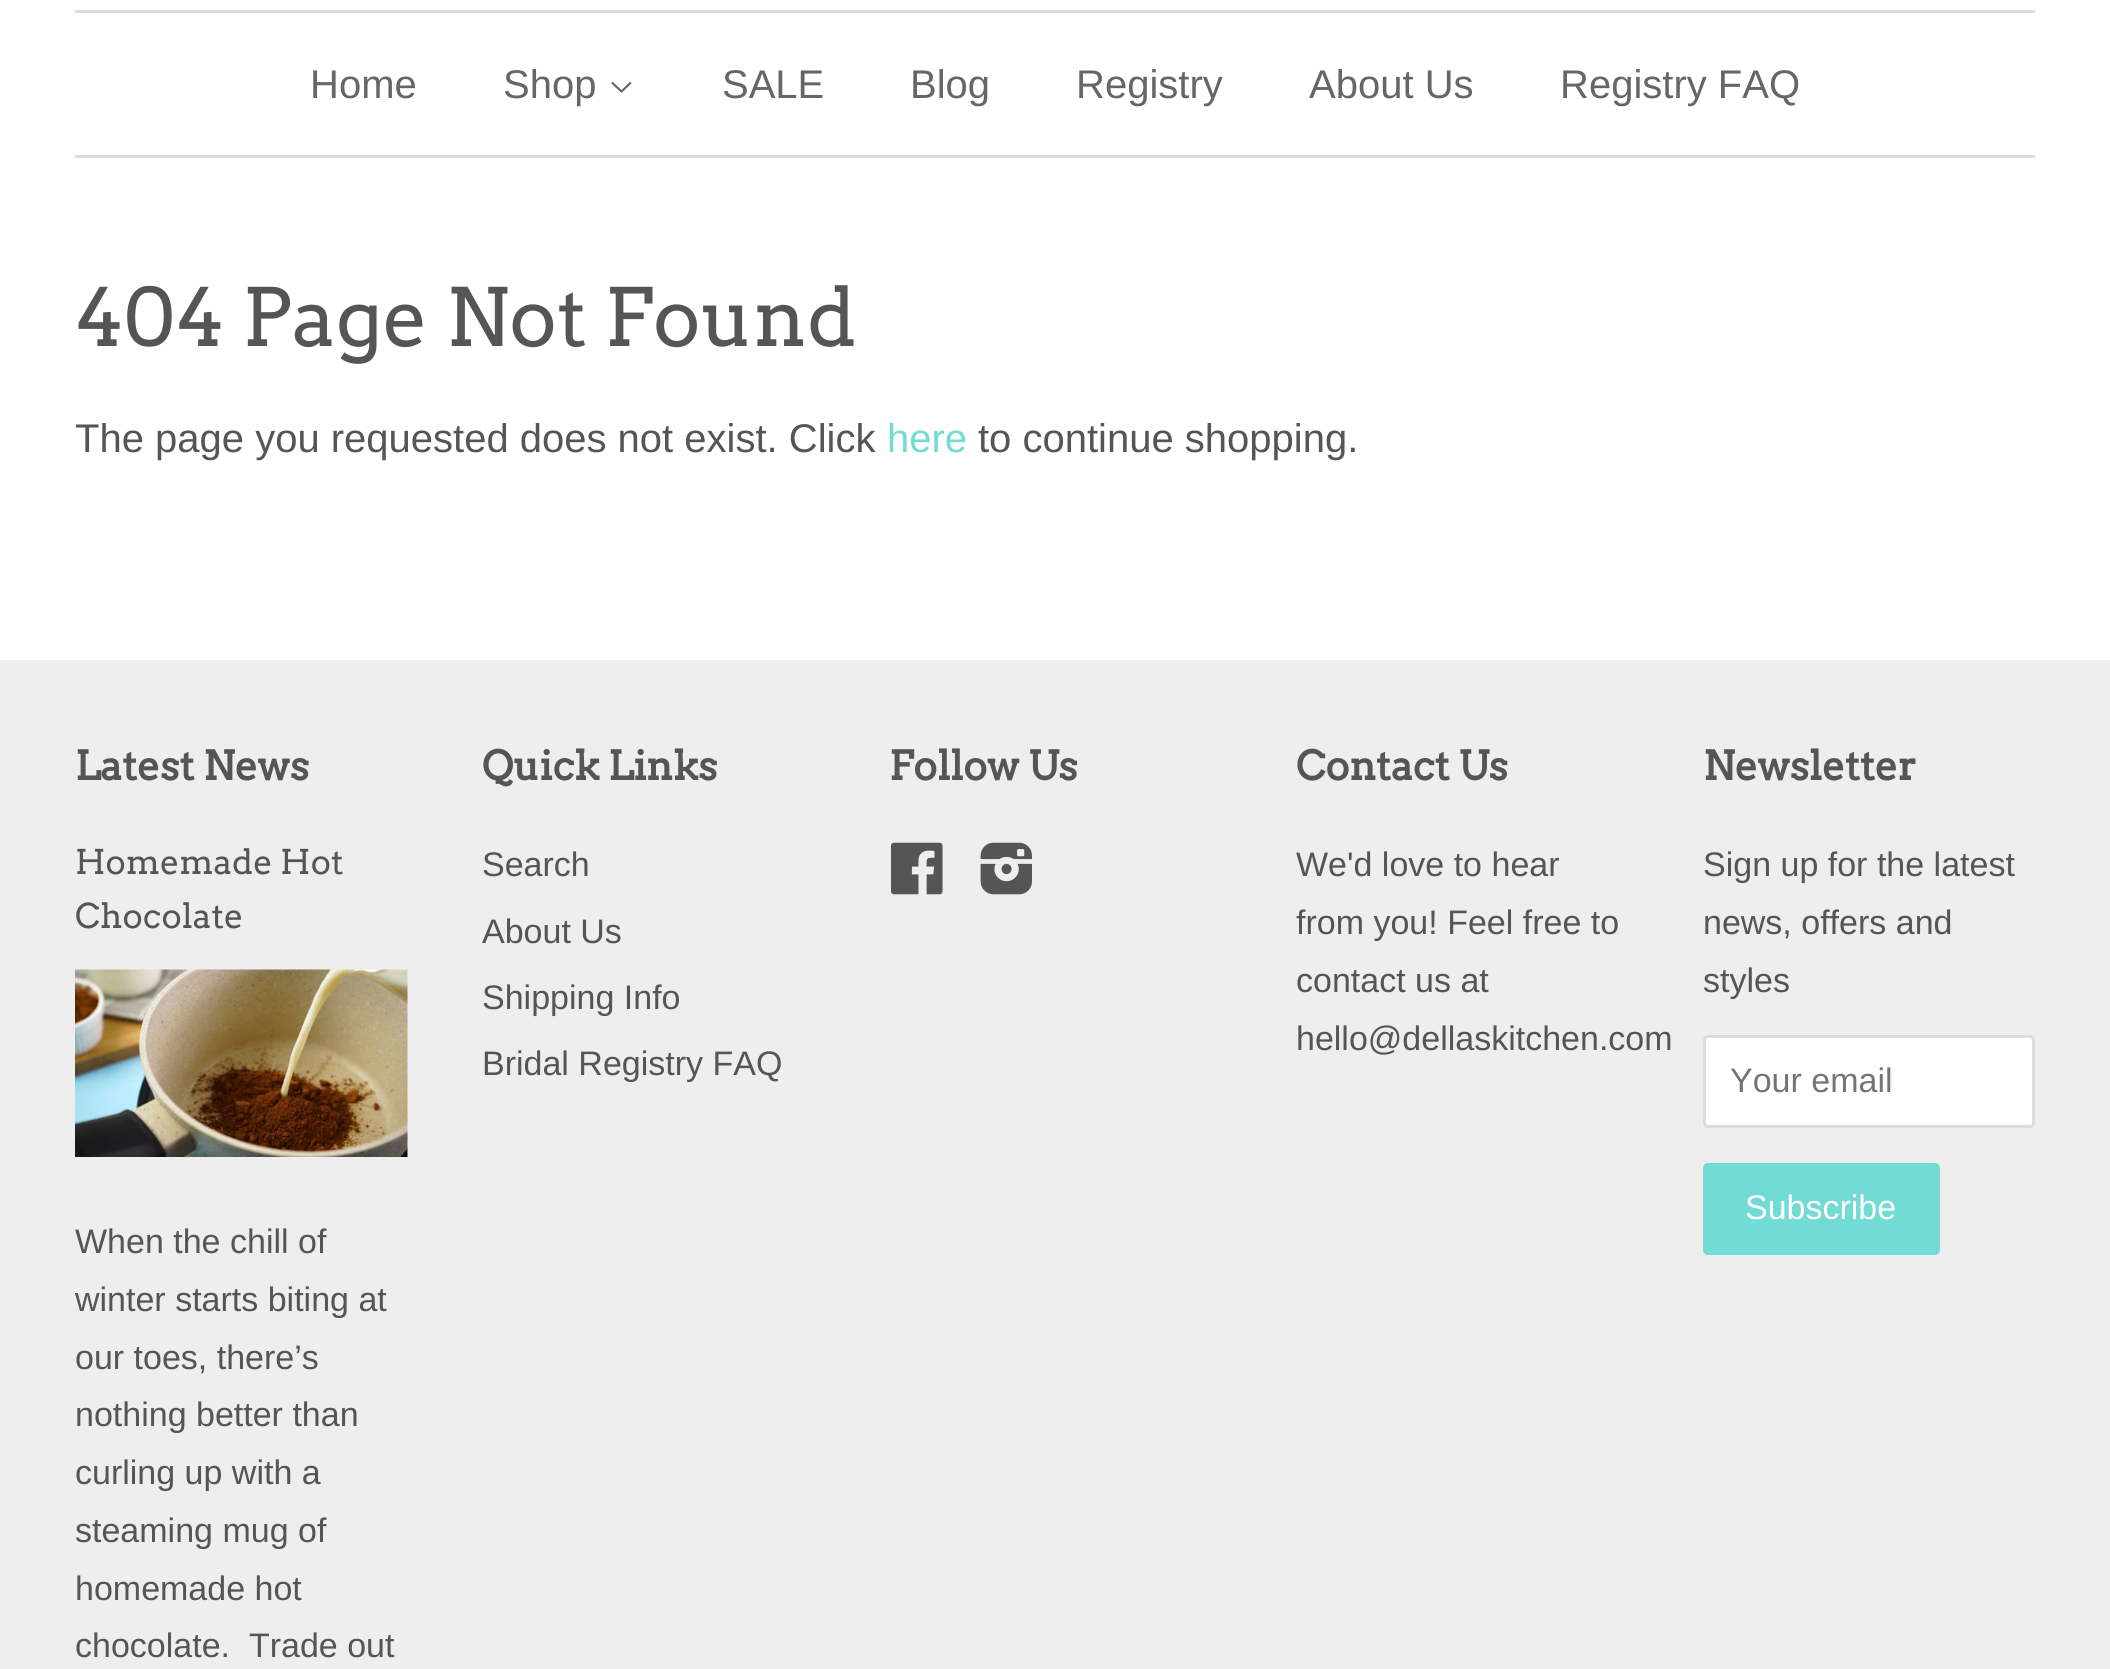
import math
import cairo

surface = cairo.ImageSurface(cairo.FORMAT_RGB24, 2110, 1669)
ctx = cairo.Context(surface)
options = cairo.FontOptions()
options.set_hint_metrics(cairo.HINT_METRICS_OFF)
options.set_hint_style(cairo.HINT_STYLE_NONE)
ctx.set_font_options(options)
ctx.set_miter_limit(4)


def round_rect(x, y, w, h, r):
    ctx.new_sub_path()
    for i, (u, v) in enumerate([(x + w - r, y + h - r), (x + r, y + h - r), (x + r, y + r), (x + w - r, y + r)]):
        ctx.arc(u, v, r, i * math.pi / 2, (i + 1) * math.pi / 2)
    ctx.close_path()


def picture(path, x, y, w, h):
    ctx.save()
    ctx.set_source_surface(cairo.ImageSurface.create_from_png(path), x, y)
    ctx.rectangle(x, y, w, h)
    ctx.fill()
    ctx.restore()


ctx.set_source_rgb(1, 1, 1)
ctx.paint()
ctx.set_source_rgb(0.867, 0.867, 0.867)
ctx.rectangle(75, 10, 1960, 3)
ctx.fill()
ctx.rectangle(75, 155, 1960, 3)
ctx.fill()
ctx.select_font_face("Liberation Sans")
ctx.set_font_size(40)
ctx.set_source_rgb(0.4, 0.4, 0.4)
ctx.move_to(310, 98)
ctx.show_text("Home")
ctx.move_to(503, 98)
ctx.show_text("Shop")
picture("img1.png", 611, 81, 21, 12)
ctx.move_to(722, 98)
ctx.show_text("SALE")
ctx.move_to(910, 98)
ctx.show_text("Blog")
ctx.move_to(1076, 98)
ctx.show_text("Registry")
ctx.move_to(1309, 98)
ctx.show_text("About Us")
ctx.move_to(1560, 98)
ctx.show_text("Registry FAQ")
ctx.select_font_face("Arvo")
ctx.set_font_size(80)
ctx.set_source_rgb(0.333, 0.333, 0.333)
ctx.move_to(75, 346)
ctx.show_text("404 Page Not Found")
ctx.select_font_face("Liberation Sans")
ctx.set_font_size(40)
ctx.move_to(75, 452)
ctx.show_text("The page you requested does not exist. Click")
ctx.set_source_rgb(0.443, 0.859, 0.831)
ctx.move_to(887, 452)
ctx.show_text("here")
ctx.set_source_rgb(0.333, 0.333, 0.333)
ctx.move_to(978, 452)
ctx.show_text("to continue shopping.")
ctx.set_source_rgb(0.933, 0.933, 0.933)
ctx.rectangle(0, 660, 2110, 1009)
ctx.fill()
ctx.select_font_face("Arvo", cairo.FONT_SLANT_NORMAL, cairo.FONT_WEIGHT_BOLD)
ctx.set_source_rgb(0.333, 0.333, 0.333)
ctx.move_to(75, 780)
ctx.show_text("Latest News")
ctx.select_font_face("Arvo")
ctx.set_font_size(34)
ctx.move_to(75, 874)
ctx.show_text("Homemade Hot")
ctx.move_to(75, 928)
ctx.show_text("Chocolate")
picture("img2.png", 75, 969, 333, 188)
ctx.select_font_face("Liberation Sans")
ctx.move_to(75, 1253)
ctx.show_text("When the chill of")
ctx.move_to(75, 1311)
ctx.show_text("winter starts biting at")
ctx.move_to(75, 1369)
ctx.show_text("our toes, there’s")
ctx.move_to(75, 1426)
ctx.show_text("nothing better than")
ctx.move_to(75, 1484)
ctx.show_text("curling up with a")
ctx.move_to(75, 1542)
ctx.show_text("steaming mug of")
ctx.move_to(75, 1600)
ctx.show_text("homemade hot")
ctx.move_to(75, 1657)
ctx.show_text("chocolate.  Trade out")
ctx.select_font_face("Arvo", cairo.FONT_SLANT_NORMAL, cairo.FONT_WEIGHT_BOLD)
ctx.set_font_size(40)
ctx.move_to(482, 780)
ctx.show_text("Quick Links")
ctx.select_font_face("Liberation Sans")
ctx.set_font_size(34)
ctx.move_to(482, 876)
ctx.show_text("Search")
ctx.move_to(482, 943)
ctx.show_text("About Us")
ctx.move_to(482, 1009)
ctx.show_text("Shipping Info")
ctx.move_to(482, 1075)
ctx.show_text("Bridal Registry FAQ")
ctx.select_font_face("Arvo", cairo.FONT_SLANT_NORMAL, cairo.FONT_WEIGHT_BOLD)
ctx.set_font_size(40)
ctx.move_to(889, 780)
ctx.show_text("Follow Us")
picture("img3.png", 890, 842, 53, 53)
picture("img4.png", 980, 842, 52, 53)
ctx.move_to(1296, 780)
ctx.show_text("Contact Us")
ctx.select_font_face("Liberation Sans")
ctx.set_font_size(34)
ctx.move_to(1296, 876)
ctx.show_text("We'd love to hear")
ctx.move_to(1296, 934)
ctx.show_text("from you! Feel free to")
ctx.move_to(1296, 992)
ctx.show_text("contact us at")
ctx.move_to(1296, 1050)
ctx.show_text("hello@dellaskitchen.com")
ctx.select_font_face("Arvo", cairo.FONT_SLANT_NORMAL, cairo.FONT_WEIGHT_BOLD)
ctx.set_font_size(40)
ctx.move_to(1703, 780)
ctx.show_text("Newsletter")
ctx.select_font_face("Liberation Sans")
ctx.set_font_size(34)
ctx.move_to(1703, 876)
ctx.show_text("Sign up for the latest")
ctx.move_to(1703, 934)
ctx.show_text("news, offers and")
ctx.move_to(1703, 992)
ctx.show_text("styles")
ctx.set_source_rgb(1, 1, 1)
round_rect(1704.5, 1036.5, 329, 90, 3.5)
ctx.fill_preserve()
ctx.set_source_rgb(0.867, 0.867, 0.867)
ctx.set_line_width(3)
ctx.stroke()
ctx.set_source_rgb(0.459, 0.459, 0.459)
ctx.move_to(1730, 1092)
ctx.show_text("Your email")
ctx.set_source_rgb(0.443, 0.859, 0.831)
round_rect(1703, 1163, 237, 92, 5)
ctx.fill()
ctx.set_source_rgb(1, 1, 1)
ctx.move_to(1745, 1219)
ctx.show_text("Subscribe")
surface.write_to_png("page.png")
